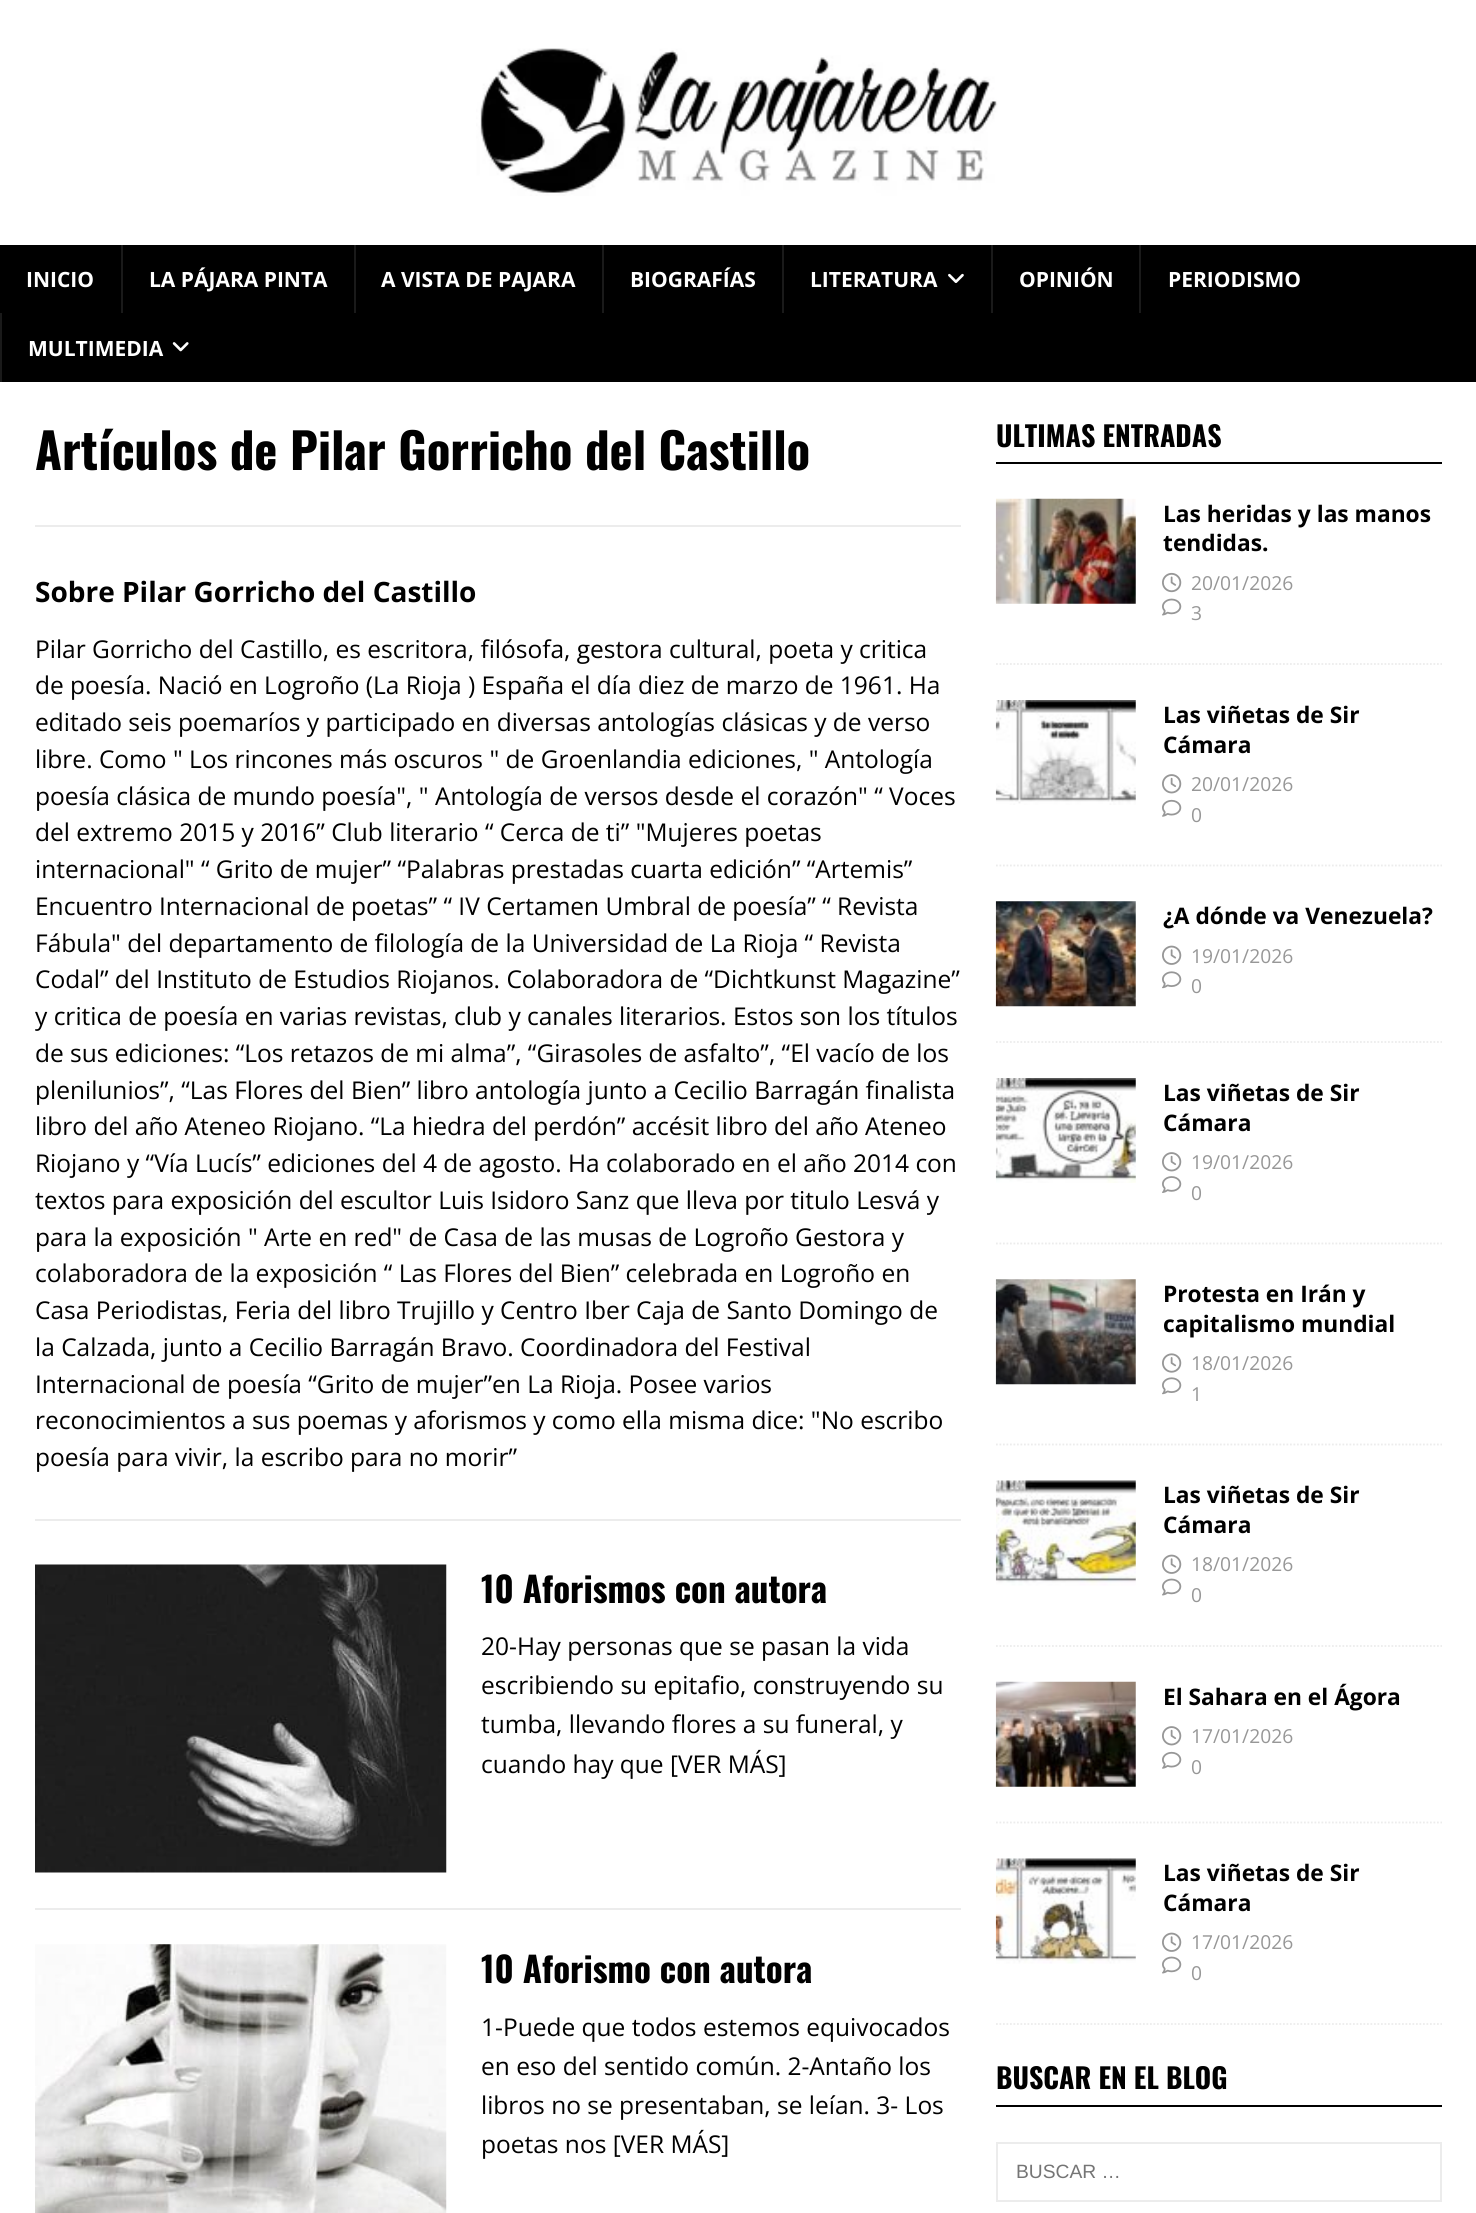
import math
import cairo

surface = cairo.ImageSurface(cairo.FORMAT_RGB24, 1476, 2213)
ctx = cairo.Context(surface)
options = cairo.FontOptions()
options.set_hint_metrics(cairo.HINT_METRICS_OFF)
options.set_hint_style(cairo.HINT_STYLE_NONE)
ctx.set_font_options(options)
ctx.set_miter_limit(4)


def picture(path, x, y, w, h):
    ctx.save()
    ctx.set_source_surface(cairo.ImageSurface.create_from_png(path), x, y)
    ctx.rectangle(x, y, w, h)
    ctx.fill()
    ctx.restore()


ctx.set_source_rgb(1, 1, 1)
ctx.paint()
picture("img1.png", 476, 48, 522, 148)
ctx.set_source_rgb(0, 0, 0)
ctx.rectangle(0, 245, 1476, 137)
ctx.fill()
ctx.select_font_face("Open Sans", cairo.FONT_SLANT_NORMAL, cairo.FONT_WEIGHT_BOLD)
ctx.set_font_size(21)
ctx.set_source_rgb(1, 1, 1)
ctx.move_to(26, 287)
ctx.show_text("INICIO")
ctx.set_source_rgb(0.102, 0.102, 0.102)
ctx.rectangle(121, 245, 2, 68)
ctx.fill()
ctx.set_source_rgb(1, 1, 1)
ctx.move_to(149, 287)
ctx.show_text("LA PÁJARA PINTA")
ctx.set_source_rgb(0.102, 0.102, 0.102)
ctx.rectangle(354, 245, 2, 68)
ctx.fill()
ctx.set_source_rgb(1, 1, 1)
ctx.move_to(381, 287)
ctx.show_text("A VISTA DE PAJARA")
ctx.set_source_rgb(0.102, 0.102, 0.102)
ctx.rectangle(602, 245, 2, 68)
ctx.fill()
ctx.set_source_rgb(1, 1, 1)
ctx.move_to(630, 287)
ctx.show_text("BIOGRAFÍAS")
ctx.set_source_rgb(0.102, 0.102, 0.102)
ctx.rectangle(782, 245, 2, 68)
ctx.fill()
ctx.set_source_rgb(1, 1, 1)
ctx.move_to(810, 287)
ctx.show_text("LITERATURA")
picture("img2.png", 948, 273, 16, 10)
ctx.set_source_rgb(0.102, 0.102, 0.102)
ctx.rectangle(991, 245, 2, 68)
ctx.fill()
ctx.set_source_rgb(1, 1, 1)
ctx.move_to(1019, 287)
ctx.show_text("OPINIÓN")
ctx.set_source_rgb(0.102, 0.102, 0.102)
ctx.rectangle(1139, 245, 2, 68)
ctx.fill()
ctx.set_source_rgb(1, 1, 1)
ctx.move_to(1168, 287)
ctx.show_text("PERIODISMO")
ctx.set_source_rgb(0.102, 0.102, 0.102)
ctx.rectangle(0, 313, 2, 69)
ctx.fill()
ctx.set_source_rgb(1, 1, 1)
ctx.move_to(28, 356)
ctx.show_text("MULTIMEDIA")
picture("img3.png", 172, 342, 17, 10)
ctx.select_font_face("Oswald", cairo.FONT_SLANT_NORMAL, cairo.FONT_WEIGHT_BOLD)
ctx.set_font_size(49)
ctx.set_source_rgb(0, 0, 0)
ctx.move_to(35, 470)
ctx.show_text("Artículos de Pilar Gorricho del Castillo")
ctx.set_source_rgb(0.922, 0.922, 0.922)
ctx.rectangle(35, 525, 926, 2)
ctx.fill()
ctx.rectangle(35, 1519, 926, 2)
ctx.fill()
ctx.select_font_face("Open Sans", cairo.FONT_SLANT_NORMAL, cairo.FONT_WEIGHT_BOLD)
ctx.set_font_size(28)
ctx.set_source_rgb(0, 0, 0)
ctx.move_to(35, 602)
ctx.show_text("Sobre Pilar Gorricho del Castillo")
ctx.select_font_face("Open Sans")
ctx.set_font_size(24.5)
ctx.move_to(35, 658)
ctx.show_text("Pilar Gorricho del Castillo, es escritora, filósofa, gestora cultural, poeta y critica")
ctx.move_to(35, 694)
ctx.show_text("de poesía. Nació en Logroño (La Rioja ) España el día diez de marzo de 1961. Ha")
ctx.move_to(35, 731)
ctx.show_text("editado seis poemaríos y participado en diversas antologías clásicas y de verso")
ctx.move_to(35, 768)
ctx.show_text("libre. Como \" Los rincones más oscuros \" de Groenlandia ediciones, \" Antología")
ctx.move_to(35, 805)
ctx.show_text("poesía clásica de mundo poesía\", \" Antología de versos desde el corazón\" “ Voces")
ctx.move_to(35, 841)
ctx.show_text("del extremo 2015 y 2016” Club literario “ Cerca de ti” \"Mujeres poetas")
ctx.move_to(35, 878)
ctx.show_text("internacional\" “ Grito de mujer” “Palabras prestadas cuarta edición” “Artemis”")
ctx.move_to(35, 915)
ctx.show_text("Encuentro Internacional de poetas” “ IV Certamen Umbral de poesía” “ Revista")
ctx.move_to(35, 952)
ctx.show_text("Fábula\" del departamento de filología de la Universidad de La Rioja “ Revista")
ctx.move_to(35, 988)
ctx.show_text("Codal” del Instituto de Estudios Riojanos. Colaboradora de “Dichtkunst Magazine”")
ctx.move_to(35, 1025)
ctx.show_text("y critica de poesía en varias revistas, club y canales literarios. Estos son los títulos")
ctx.move_to(35, 1062)
ctx.show_text("de sus ediciones: “Los retazos de mi alma”, “Girasoles de asfalto”, “El vacío de los")
ctx.move_to(35, 1099)
ctx.show_text("plenilunios”, “Las Flores del Bien” libro antología junto a Cecilio Barragán finalista")
ctx.move_to(35, 1135)
ctx.show_text("libro del año Ateneo Riojano. “La hiedra del perdón” accésit libro del año Ateneo")
ctx.move_to(35, 1172)
ctx.show_text("Riojano y “Vía Lucís” ediciones del 4 de agosto. Ha colaborado en el año 2014 con")
ctx.move_to(35, 1209)
ctx.show_text("textos para exposición del escultor Luis Isidoro Sanz que lleva por titulo Lesvá y")
ctx.move_to(35, 1246)
ctx.show_text("para la exposición \" Arte en red\" de Casa de las musas de Logroño Gestora y")
ctx.move_to(35, 1282)
ctx.show_text("colaboradora de la exposición “ Las Flores del Bien” celebrada en Logroño en")
ctx.move_to(35, 1319)
ctx.show_text("Casa Periodistas, Feria del libro Trujillo y Centro Iber Caja de Santo Domingo de")
ctx.move_to(35, 1356)
ctx.show_text("la Calzada, junto a Cecilio Barragán Bravo. Coordinadora del Festival")
ctx.move_to(35, 1393)
ctx.show_text("Internacional de poesía “Grito de mujer”en La Rioja. Posee varios")
ctx.move_to(35, 1429)
ctx.show_text("reconocimientos a sus poemas y aforismos y como ella misma dice: \"No escribo")
ctx.move_to(35, 1466)
ctx.show_text("poesía para vivir, la escribo para no morir”")
ctx.set_source_rgb(0.922, 0.922, 0.922)
ctx.rectangle(35, 1908, 926, 2)
ctx.fill()
picture("img4.png", 35, 1564, 412, 309)
ctx.select_font_face("Oswald", cairo.FONT_SLANT_NORMAL, cairo.FONT_WEIGHT_BOLD)
ctx.set_font_size(35)
ctx.set_source_rgb(0, 0, 0)
ctx.move_to(481, 1603)
ctx.show_text("10 Aforismos con autora")
ctx.select_font_face("Open Sans")
ctx.set_font_size(24.5)
ctx.move_to(481, 1655)
ctx.show_text("20-Hay personas que se pasan la vida")
ctx.move_to(481, 1694)
ctx.show_text("escribiendo su epitafio, construyendo su")
ctx.move_to(481, 1733)
ctx.show_text("tumba, llevando flores a su funeral, y")
ctx.move_to(481, 1773)
ctx.show_text("cuando hay que [VER MÁS]")
picture("img5.png", 35, 1944, 412, 269)
ctx.select_font_face("Oswald", cairo.FONT_SLANT_NORMAL, cairo.FONT_WEIGHT_BOLD)
ctx.set_font_size(35)
ctx.move_to(481, 1983)
ctx.show_text("10 Aforismo con autora")
ctx.select_font_face("Open Sans")
ctx.set_font_size(24.5)
ctx.move_to(481, 2036)
ctx.show_text("1-Puede que todos estemos equivocados")
ctx.move_to(481, 2075)
ctx.show_text("en eso del sentido común. 2-Antaño los")
ctx.move_to(481, 2114)
ctx.show_text("libros no se presentaban, se leían. 3- Los")
ctx.move_to(481, 2153)
ctx.show_text("poetas nos [VER MÁS]")
ctx.rectangle(996, 462, 446, 2)
ctx.fill()
ctx.select_font_face("Oswald", cairo.FONT_SLANT_NORMAL, cairo.FONT_WEIGHT_BOLD)
ctx.set_font_size(28)
ctx.move_to(996, 447)
ctx.show_text("ULTIMAS ENTRADAS")
ctx.new_path()
ctx.move_to(996, 664)
ctx.line_to(1442, 664)
ctx.set_source_rgb(0.922, 0.922, 0.922)
ctx.set_line_width(1.8)
ctx.set_dash([1.75, 1.75])
ctx.stroke()
picture("img6.png", 995, 498, 141, 106)
ctx.select_font_face("Open Sans", cairo.FONT_SLANT_NORMAL, cairo.FONT_WEIGHT_BOLD)
ctx.set_font_size(22.75)
ctx.set_source_rgb(0, 0, 0)
ctx.move_to(1163, 522)
ctx.show_text("Las heridas y las manos")
ctx.move_to(1163, 551)
ctx.show_text("tendidas.")
picture("img7.png", 1162, 572, 20, 21)
ctx.select_font_face("Open Sans")
ctx.set_font_size(19.25)
ctx.set_source_rgb(0.592, 0.592, 0.592)
ctx.move_to(1191, 590)
ctx.show_text("20/01/2026")
picture("img8.png", 1162, 598, 20, 18)
ctx.move_to(1191, 620)
ctx.show_text("3")
ctx.new_path()
ctx.move_to(996, 865.5)
ctx.line_to(1442, 865.5)
ctx.set_source_rgb(0.922, 0.922, 0.922)
ctx.stroke()
picture("img9.png", 995, 700, 141, 105)
ctx.select_font_face("Open Sans", cairo.FONT_SLANT_NORMAL, cairo.FONT_WEIGHT_BOLD)
ctx.set_font_size(22.75)
ctx.set_source_rgb(0, 0, 0)
ctx.move_to(1163, 723)
ctx.show_text("Las viñetas de Sir")
ctx.move_to(1163, 753)
ctx.show_text("Cámara")
picture("img10.png", 1162, 774, 20, 20)
ctx.select_font_face("Open Sans")
ctx.set_font_size(19.25)
ctx.set_source_rgb(0.592, 0.592, 0.592)
ctx.move_to(1191, 791)
ctx.show_text("20/01/2026")
picture("img11.png", 1162, 799, 20, 18)
ctx.move_to(1191, 822)
ctx.show_text("0")
ctx.new_path()
ctx.move_to(996, 1042)
ctx.line_to(1442, 1042)
ctx.set_source_rgb(0.922, 0.922, 0.922)
ctx.stroke()
picture("img12.png", 995, 901, 141, 106)
ctx.select_font_face("Open Sans", cairo.FONT_SLANT_NORMAL, cairo.FONT_WEIGHT_BOLD)
ctx.set_font_size(22.75)
ctx.set_source_rgb(0, 0, 0)
ctx.move_to(1163, 924)
ctx.show_text("¿A dónde va Venezuela?")
picture("img13.png", 1162, 945, 20, 20)
ctx.select_font_face("Open Sans")
ctx.set_font_size(19.25)
ctx.set_source_rgb(0.592, 0.592, 0.592)
ctx.move_to(1191, 963)
ctx.show_text("19/01/2026")
picture("img14.png", 1162, 971, 20, 18)
ctx.move_to(1191, 993)
ctx.show_text("0")
ctx.new_path()
ctx.move_to(996, 1243.5)
ctx.line_to(1442, 1243.5)
ctx.set_source_rgb(0.922, 0.922, 0.922)
ctx.stroke()
picture("img15.png", 995, 1078, 141, 105)
ctx.select_font_face("Open Sans", cairo.FONT_SLANT_NORMAL, cairo.FONT_WEIGHT_BOLD)
ctx.set_font_size(22.75)
ctx.set_source_rgb(0, 0, 0)
ctx.move_to(1163, 1101)
ctx.show_text("Las viñetas de Sir")
ctx.move_to(1163, 1131)
ctx.show_text("Cámara")
picture("img10.png", 1162, 1152, 20, 20)
ctx.select_font_face("Open Sans")
ctx.set_font_size(19.25)
ctx.set_source_rgb(0.592, 0.592, 0.592)
ctx.move_to(1191, 1169)
ctx.show_text("19/01/2026")
picture("img16.png", 1162, 1176, 20, 17)
ctx.move_to(1191, 1200)
ctx.show_text("0")
ctx.new_path()
ctx.move_to(996, 1444.5)
ctx.line_to(1442, 1444.5)
ctx.set_source_rgb(0.922, 0.922, 0.922)
ctx.stroke()
picture("img17.png", 995, 1279, 141, 106)
ctx.select_font_face("Open Sans", cairo.FONT_SLANT_NORMAL, cairo.FONT_WEIGHT_BOLD)
ctx.set_font_size(22.75)
ctx.set_source_rgb(0, 0, 0)
ctx.move_to(1163, 1302)
ctx.show_text("Protesta en Irán y")
ctx.move_to(1163, 1332)
ctx.show_text("capitalismo mundial")
picture("img18.png", 1162, 1353, 20, 20)
ctx.select_font_face("Open Sans")
ctx.set_font_size(19.25)
ctx.set_source_rgb(0.592, 0.592, 0.592)
ctx.move_to(1191, 1370)
ctx.show_text("18/01/2026")
picture("img14.png", 1162, 1377, 20, 18)
ctx.move_to(1191, 1401)
ctx.show_text("1")
ctx.new_path()
ctx.move_to(996, 1646)
ctx.line_to(1442, 1646)
ctx.set_source_rgb(0.922, 0.922, 0.922)
ctx.stroke()
picture("img19.png", 995, 1480, 141, 106)
ctx.select_font_face("Open Sans", cairo.FONT_SLANT_NORMAL, cairo.FONT_WEIGHT_BOLD)
ctx.set_font_size(22.75)
ctx.set_source_rgb(0, 0, 0)
ctx.move_to(1163, 1503)
ctx.show_text("Las viñetas de Sir")
ctx.move_to(1163, 1533)
ctx.show_text("Cámara")
picture("img13.png", 1162, 1554, 20, 20)
ctx.select_font_face("Open Sans")
ctx.set_font_size(19.25)
ctx.set_source_rgb(0.592, 0.592, 0.592)
ctx.move_to(1191, 1571)
ctx.show_text("18/01/2026")
picture("img8.png", 1162, 1578, 20, 18)
ctx.move_to(1191, 1602)
ctx.show_text("0")
ctx.new_path()
ctx.move_to(996, 1822.5)
ctx.line_to(1442, 1822.5)
ctx.set_source_rgb(0.922, 0.922, 0.922)
ctx.stroke()
picture("img20.png", 995, 1681, 141, 106)
ctx.select_font_face("Open Sans", cairo.FONT_SLANT_NORMAL, cairo.FONT_WEIGHT_BOLD)
ctx.set_font_size(22.75)
ctx.set_source_rgb(0, 0, 0)
ctx.move_to(1163, 1705)
ctx.show_text("El Sahara en el Ágora")
picture("img10.png", 1162, 1726, 20, 20)
ctx.select_font_face("Open Sans")
ctx.set_font_size(19.25)
ctx.set_source_rgb(0.592, 0.592, 0.592)
ctx.move_to(1191, 1743)
ctx.show_text("17/01/2026")
picture("img11.png", 1162, 1751, 20, 18)
ctx.move_to(1191, 1774)
ctx.show_text("0")
ctx.new_path()
ctx.move_to(996, 2024)
ctx.line_to(1442, 2024)
ctx.set_source_rgb(0.922, 0.922, 0.922)
ctx.stroke()
picture("img21.png", 995, 1858, 141, 106)
ctx.select_font_face("Open Sans", cairo.FONT_SLANT_NORMAL, cairo.FONT_WEIGHT_BOLD)
ctx.set_font_size(22.75)
ctx.set_source_rgb(0, 0, 0)
ctx.move_to(1163, 1881)
ctx.show_text("Las viñetas de Sir")
ctx.move_to(1163, 1911)
ctx.show_text("Cámara")
picture("img13.png", 1162, 1932, 20, 20)
ctx.select_font_face("Open Sans")
ctx.set_font_size(19.25)
ctx.set_source_rgb(0.592, 0.592, 0.592)
ctx.move_to(1191, 1949)
ctx.show_text("17/01/2026")
picture("img8.png", 1162, 1956, 20, 18)
ctx.move_to(1191, 1980)
ctx.show_text("0")
ctx.set_source_rgb(0, 0, 0)
ctx.rectangle(996, 2105, 446, 2)
ctx.fill()
ctx.select_font_face("Oswald", cairo.FONT_SLANT_NORMAL, cairo.FONT_WEIGHT_BOLD)
ctx.set_font_size(28)
ctx.move_to(996, 2089)
ctx.show_text("BUSCAR EN EL BLOG")
ctx.rectangle(997, 2143, 444, 58)
ctx.set_source_rgb(0.922, 0.922, 0.922)
ctx.set_line_width(2)
ctx.set_dash([])
ctx.stroke()
ctx.select_font_face("Liberation Sans")
ctx.set_font_size(19.25)
ctx.set_source_rgb(0.459, 0.459, 0.459)
ctx.move_to(1016, 2178)
ctx.show_text("BUSCAR …")
surface.write_to_png("page.png")
